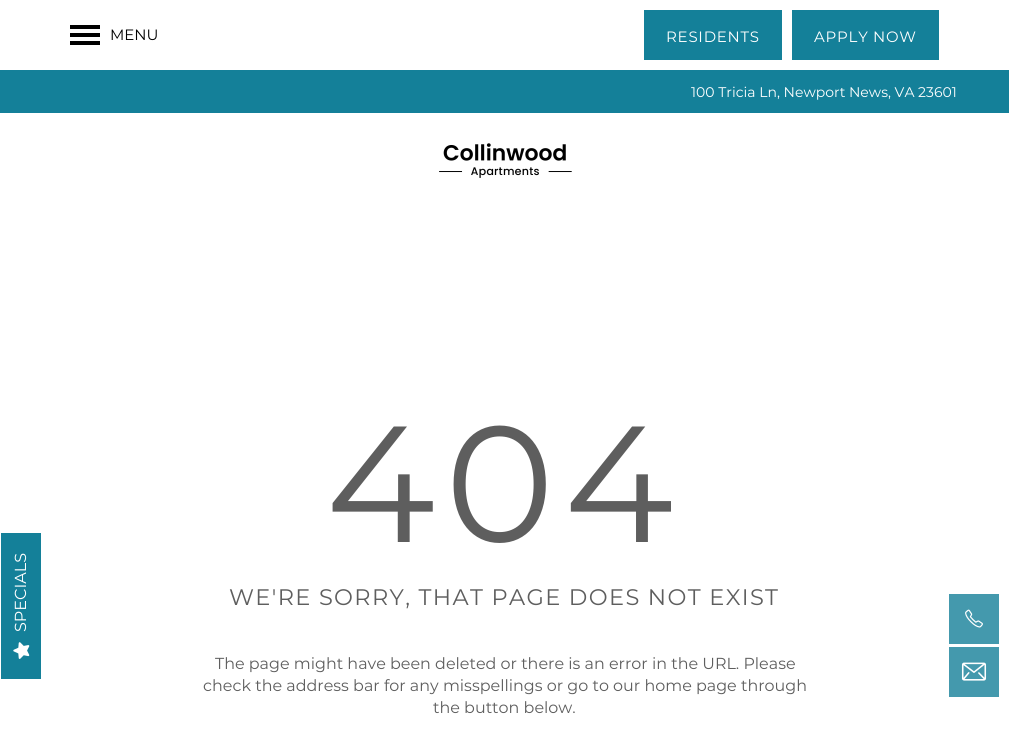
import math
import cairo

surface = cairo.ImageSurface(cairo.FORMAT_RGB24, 1009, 730)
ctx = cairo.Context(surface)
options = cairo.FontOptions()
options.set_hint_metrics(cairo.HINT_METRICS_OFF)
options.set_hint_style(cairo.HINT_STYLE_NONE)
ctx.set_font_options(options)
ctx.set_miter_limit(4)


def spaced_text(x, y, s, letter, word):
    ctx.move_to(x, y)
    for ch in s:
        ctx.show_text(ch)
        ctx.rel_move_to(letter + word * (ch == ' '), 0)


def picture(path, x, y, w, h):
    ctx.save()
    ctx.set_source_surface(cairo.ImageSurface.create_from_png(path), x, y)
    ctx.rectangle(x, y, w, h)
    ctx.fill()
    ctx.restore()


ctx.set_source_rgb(1, 1, 1)
ctx.paint()
ctx.set_source_rgb(0, 0, 0)
ctx.rectangle(70, 25, 30, 4)
ctx.fill()
ctx.rectangle(70, 33, 30, 4)
ctx.fill()
ctx.rectangle(70, 41, 30, 4)
ctx.fill()
ctx.select_font_face("Montserrat")
ctx.set_font_size(15)
ctx.move_to(110, 40)
ctx.show_text("MENU")
ctx.set_source_rgb(0.082, 0.502, 0.6)
ctx.rectangle(644, 10, 138, 50)
ctx.fill()
ctx.set_source_rgb(1, 1, 1)
spaced_text(666, 42, "RESIDENTS", 0.75, 0)
ctx.set_source_rgb(0.082, 0.502, 0.6)
ctx.rectangle(792, 10, 147, 50)
ctx.fill()
ctx.set_source_rgb(1, 1, 1)
spaced_text(814, 42, "APPLY NOW", 0.75, 0)
picture("img1.png", 439, 143, 133, 35)
ctx.set_source_rgb(0.082, 0.502, 0.6)
ctx.rectangle(1, 533, 40, 146)
ctx.fill()
ctx.set_font_size(16)
ctx.set_source_rgb(1, 1, 1)
ctx.save()
ctx.translate(26, 632)
ctx.rotate(-90 * math.pi / 180)
ctx.move_to(0, 0)
ctx.show_text("SPECIALS")
ctx.restore()
picture("img2.png", 13, 642, 17, 17)
ctx.set_source_rgb(0.267, 0.6, 0.678)
ctx.rectangle(949, 594, 50, 50)
ctx.fill()
picture("img3.png", 965, 609, 18, 19)
ctx.rectangle(949, 647, 50, 50)
ctx.fill()
picture("img4.png", 961, 662, 26, 19)
ctx.set_font_size(165)
ctx.set_source_rgb(0.369, 0.369, 0.369)
spaced_text(326, 542, "404", 10, 0)
ctx.set_font_size(22.5)
spaced_text(229, 605, "WE'RE SORRY, THAT PAGE DOES NOT EXIST", 1.35, 0)
ctx.set_font_size(15.95)
ctx.move_to(215, 669)
ctx.show_text("The page might have been deleted or there is an error in the URL. Please")
ctx.move_to(203, 691)
ctx.show_text("check the address bar for any misspellings or go to our home page through")
ctx.move_to(433, 713)
ctx.show_text("the button below.")
ctx.set_source_rgb(0.082, 0.502, 0.6)
ctx.rectangle(0, 70, 1009, 43)
ctx.fill()
ctx.set_font_size(14)
ctx.set_source_rgb(1, 1, 1)
ctx.move_to(691, 97)
ctx.show_text("100 Tricia Ln, Newport News, VA 23601")
surface.write_to_png("page.png")
